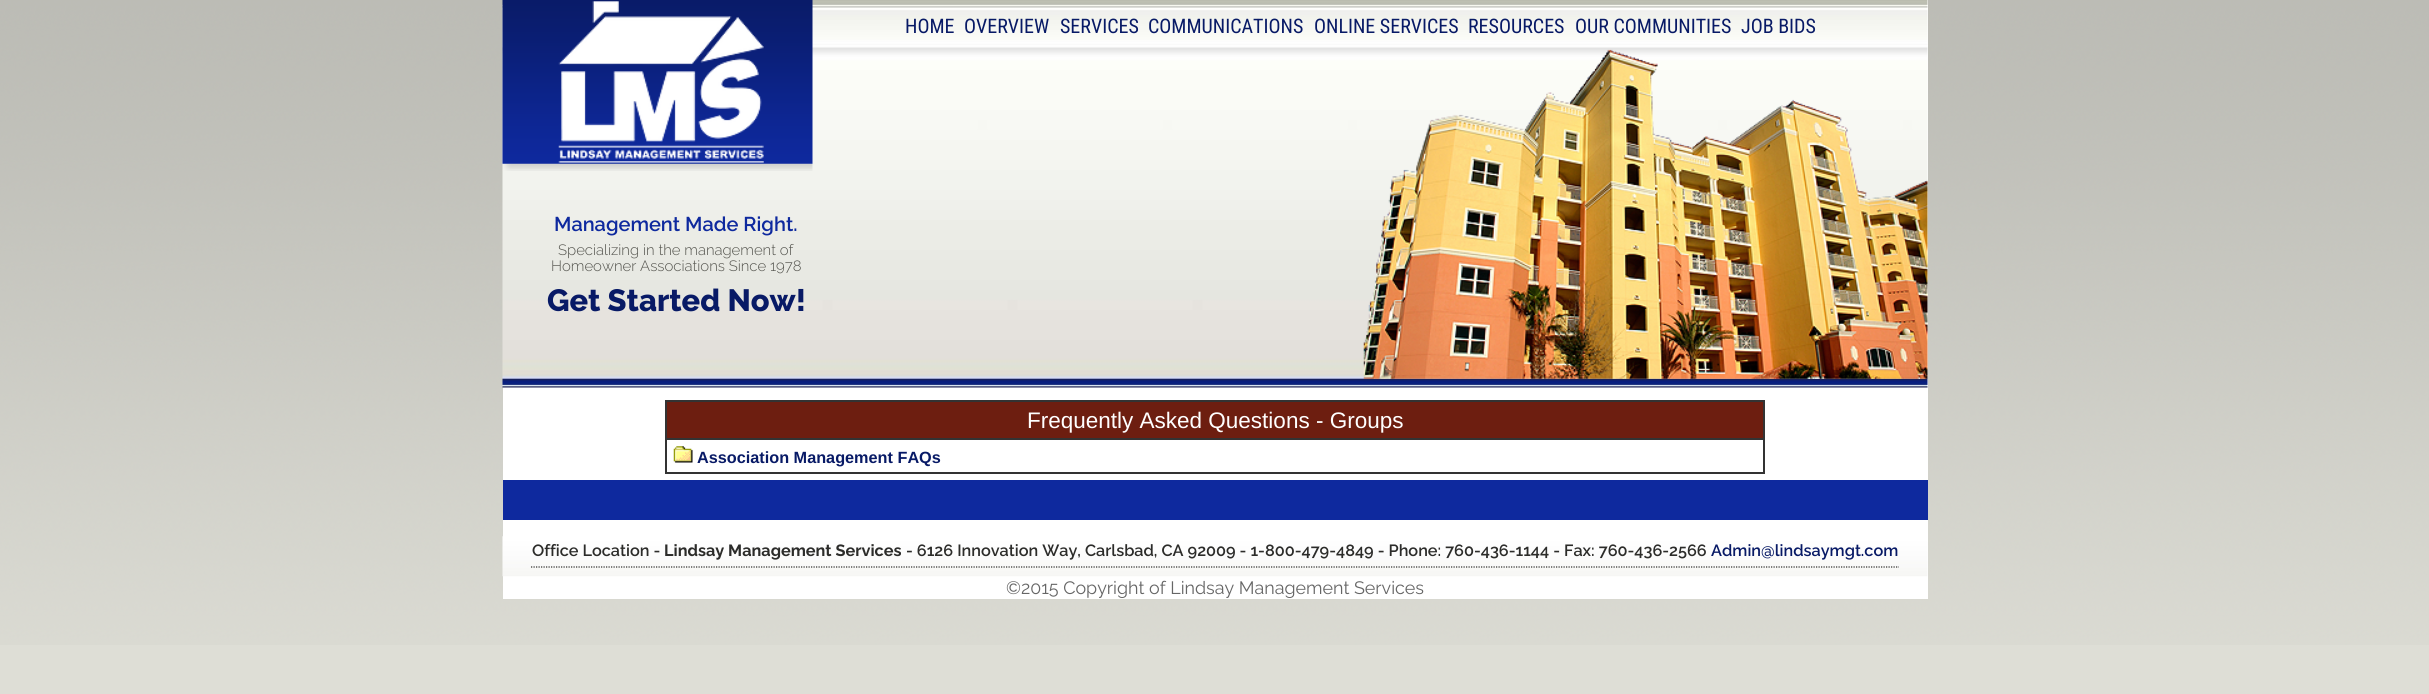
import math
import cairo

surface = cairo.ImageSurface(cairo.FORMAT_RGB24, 2429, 694)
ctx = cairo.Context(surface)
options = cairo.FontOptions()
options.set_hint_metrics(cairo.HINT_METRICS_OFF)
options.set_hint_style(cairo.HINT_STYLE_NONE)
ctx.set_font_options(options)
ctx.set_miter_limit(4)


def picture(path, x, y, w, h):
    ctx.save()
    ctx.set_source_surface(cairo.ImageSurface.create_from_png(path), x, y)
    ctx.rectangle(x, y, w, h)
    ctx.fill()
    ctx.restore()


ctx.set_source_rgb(0.871, 0.871, 0.839)
ctx.paint()
picture("img1.png", 0, 0, 2429, 645)
ctx.set_source_rgb(1, 1, 1)
ctx.rectangle(503, 0, 1425, 599)
ctx.fill()
picture("img2.png", 502, 0, 1426, 388)
picture("img3.png", 502, 0, 311, 171)
ctx.select_font_face("Roboto Condensed")
ctx.set_font_size(20)
ctx.set_source_rgb(0.035, 0.102, 0.4)
ctx.move_to(905, 33)
ctx.show_text("HOME")
ctx.move_to(964, 33)
ctx.show_text("OVERVIEW")
ctx.move_to(1060, 33)
ctx.show_text("SERVICES")
ctx.move_to(1148, 33)
ctx.show_text("COMMUNICATIONS")
ctx.move_to(1314, 33)
ctx.show_text("ONLINE SERVICES")
ctx.move_to(1468, 33)
ctx.show_text("RESOURCES")
ctx.move_to(1575, 33)
ctx.show_text("OUR COMMUNITIES")
ctx.move_to(1741, 33)
ctx.show_text("JOB BIDS")
ctx.select_font_face("Raleway SemiBold")
ctx.set_source_rgb(0.055, 0.161, 0.62)
ctx.move_to(554, 231)
ctx.show_text("Management Made Right.")
picture("img4.png", 1363, 49, 565, 330)
ctx.select_font_face("Raleway Light")
ctx.set_font_size(14.9)
ctx.set_source_rgb(0.329, 0.329, 0.306)
ctx.move_to(558, 255)
ctx.show_text("Specializing in the management of")
ctx.move_to(551, 271)
ctx.show_text("Homeowner Associations Since 1978")
ctx.select_font_face("Raleway ExtraBold")
ctx.set_font_size(30.75)
ctx.set_source_rgb(0.035, 0.102, 0.4)
ctx.move_to(547, 311)
ctx.show_text("Get Started Now!")
ctx.rectangle(665.5, 400.5, 1099, 73)
ctx.set_source_rgb(0.2, 0.2, 0.2)
ctx.set_line_width(1)
ctx.stroke()
ctx.set_source_rgb(0.427, 0.118, 0.063)
ctx.rectangle(666.5, 401.5, 1097, 37)
ctx.fill_preserve()
ctx.set_source_rgb(0.2, 0.2, 0.2)
ctx.stroke()
ctx.select_font_face("Liberation Sans")
ctx.set_font_size(22.5)
ctx.set_source_rgb(1, 1, 1)
ctx.move_to(1027, 428)
ctx.show_text("Frequently Asked Questions - Groups")
ctx.rectangle(666.5, 439.5, 1097, 33)
ctx.set_source_rgb(0.2, 0.2, 0.2)
ctx.stroke()
picture("img5.png", 673, 446, 20, 17)
ctx.select_font_face("Liberation Sans", cairo.FONT_SLANT_NORMAL, cairo.FONT_WEIGHT_BOLD)
ctx.set_font_size(16.25)
ctx.set_source_rgb(0.035, 0.102, 0.4)
ctx.move_to(697, 463)
ctx.show_text("Association Management FAQs")
ctx.set_source_rgb(0.055, 0.161, 0.62)
ctx.rectangle(503, 480, 1425, 40)
ctx.fill()
picture("img6.png", 502, 536, 1426, 41)
ctx.new_path()
ctx.move_to(531, 567)
ctx.line_to(1899, 567)
ctx.set_source_rgb(0.173, 0.173, 0.165)
ctx.set_line_width(1.2)
ctx.set_dash([1.25, 1.25])
ctx.stroke()
ctx.select_font_face("Raleway SemiBold")
ctx.move_to(532, 556)
ctx.show_text("Office Location -")
ctx.select_font_face("Raleway", cairo.FONT_SLANT_NORMAL, cairo.FONT_WEIGHT_BOLD)
ctx.move_to(664, 556)
ctx.show_text("Lindsay Management Services")
ctx.select_font_face("Raleway SemiBold")
ctx.move_to(906, 556)
ctx.show_text("- 6126 Innovation Way, Carlsbad, CA 92009 - 1-800-479-4849 - Phone: 760-436-1144 - Fax: 760-436-2566")
ctx.set_source_rgb(0.035, 0.102, 0.4)
ctx.move_to(1711, 556)
ctx.show_text("Admin@lindsaymgt.com")
ctx.select_font_face("Raleway")
ctx.set_font_size(17.9)
ctx.set_source_rgb(0.4, 0.4, 0.4)
ctx.move_to(1006, 594)
ctx.show_text("©2015 Copyright of Lindsay Management Services")
surface.write_to_png("page.png")
